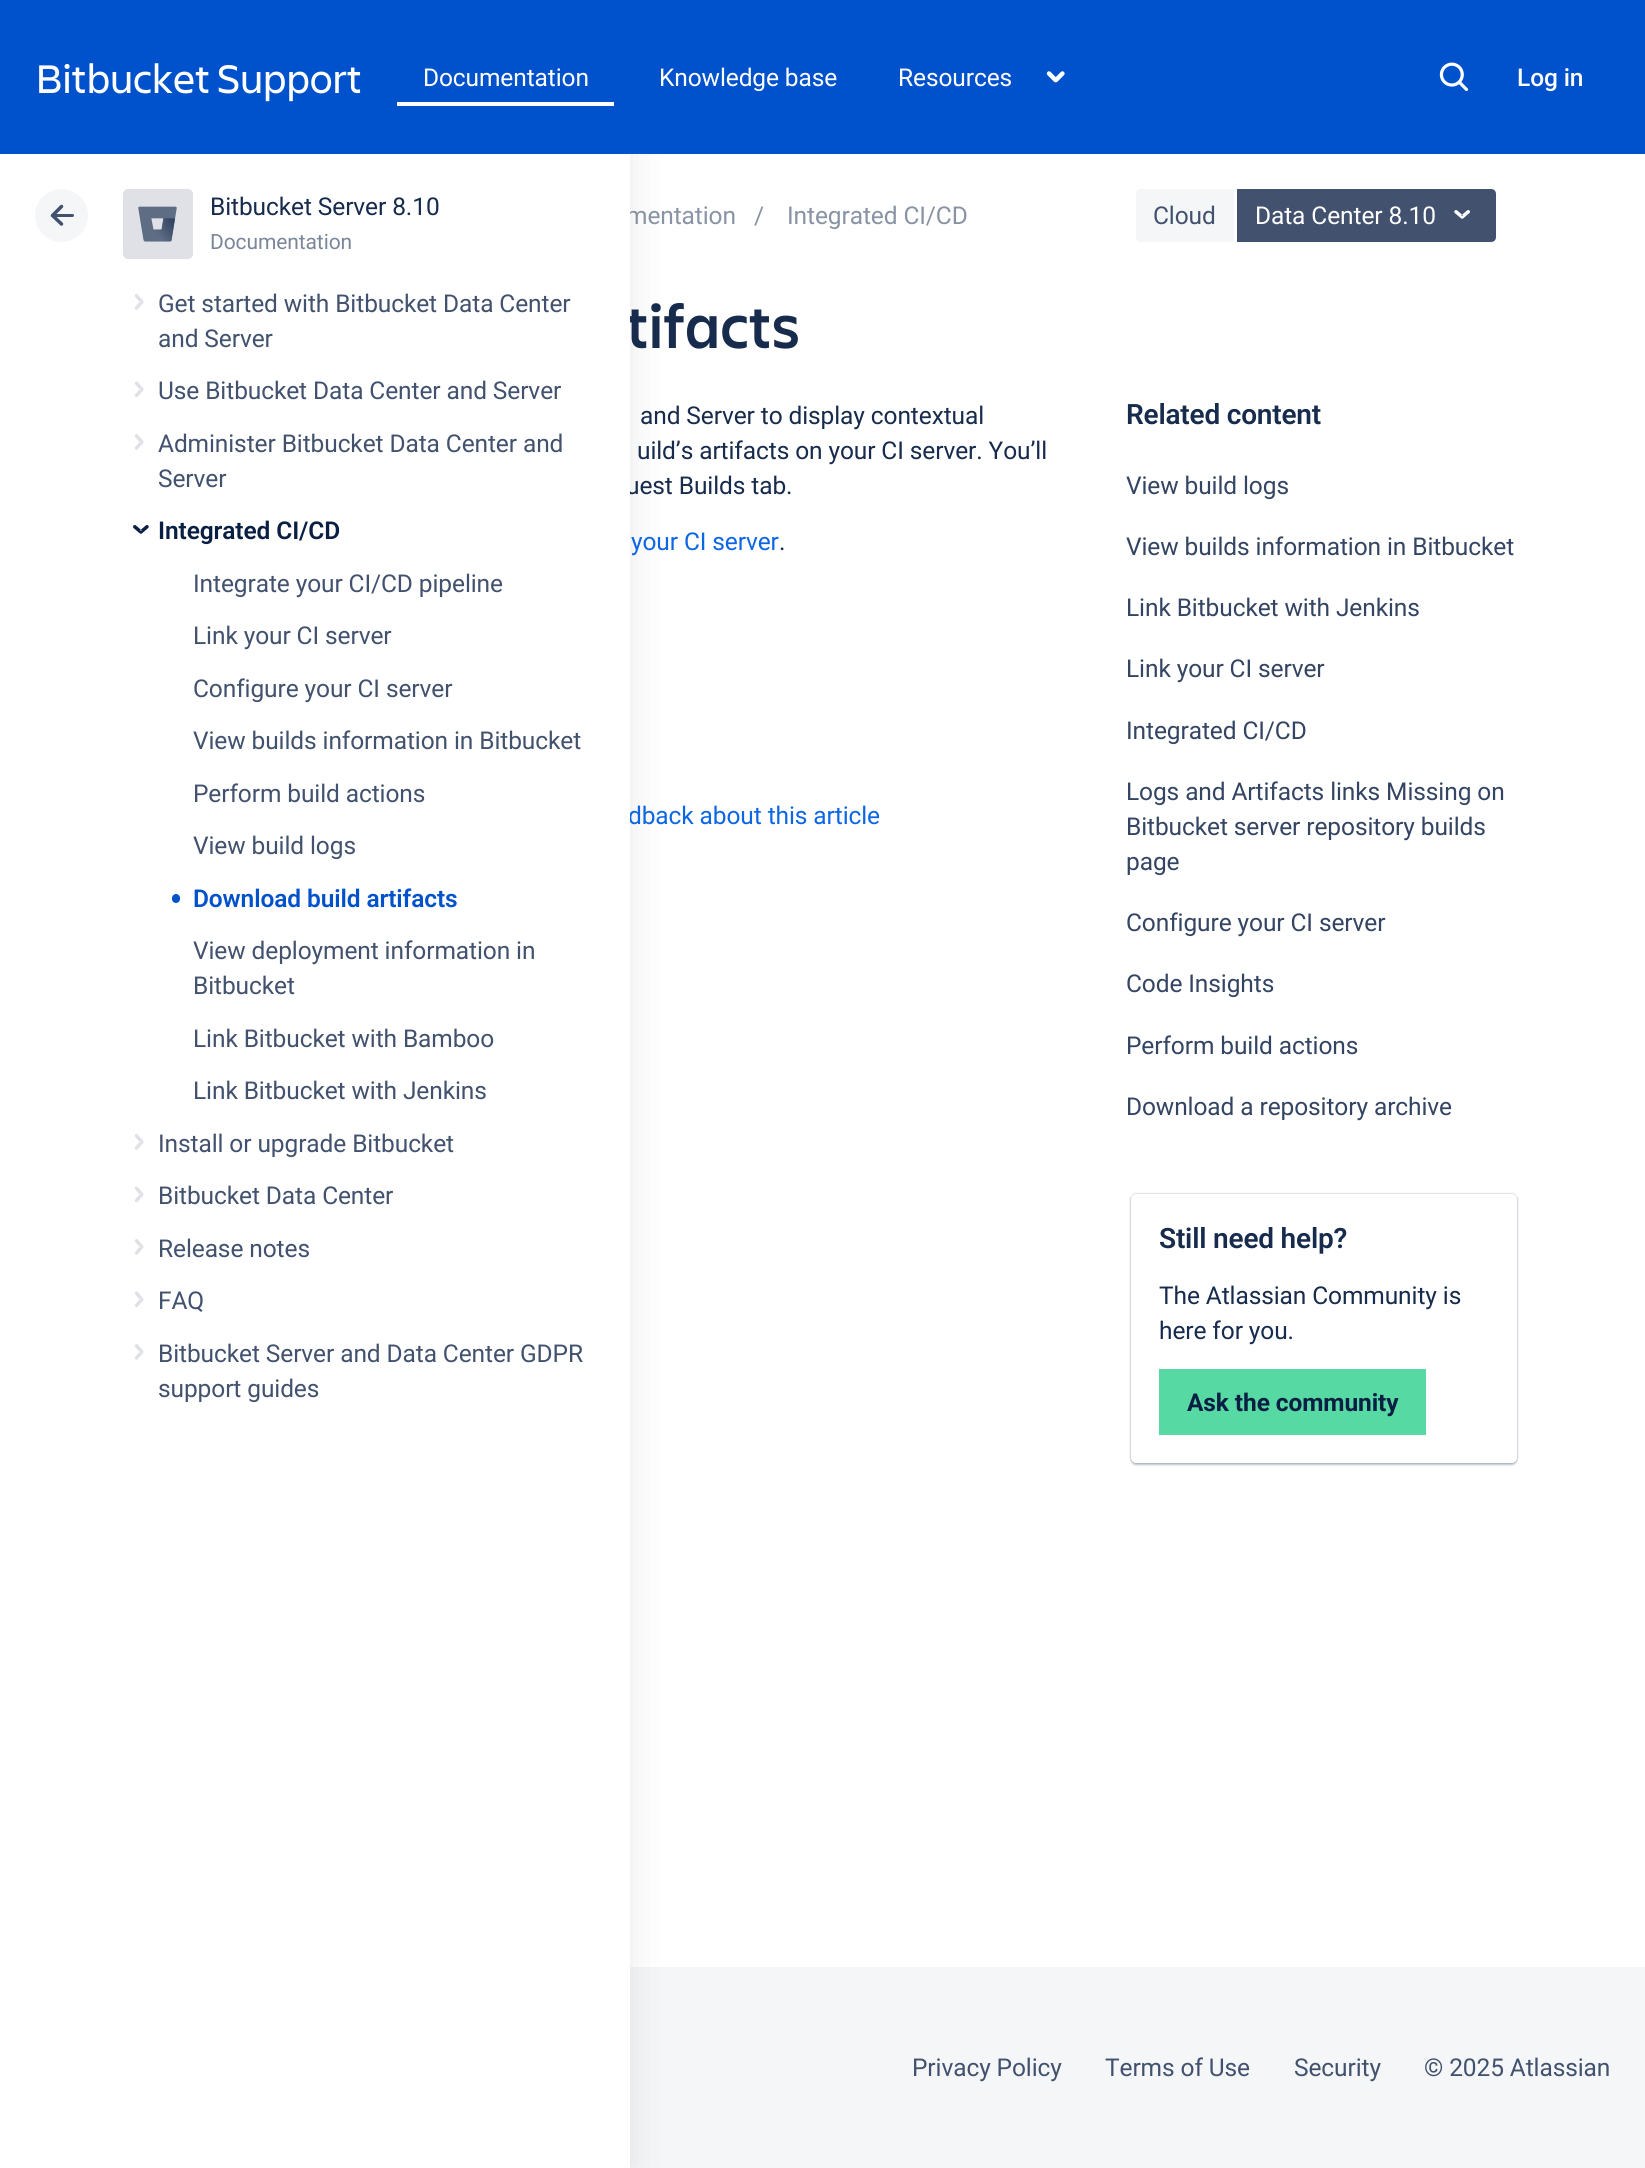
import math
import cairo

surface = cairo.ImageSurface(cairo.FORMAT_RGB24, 1645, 2168)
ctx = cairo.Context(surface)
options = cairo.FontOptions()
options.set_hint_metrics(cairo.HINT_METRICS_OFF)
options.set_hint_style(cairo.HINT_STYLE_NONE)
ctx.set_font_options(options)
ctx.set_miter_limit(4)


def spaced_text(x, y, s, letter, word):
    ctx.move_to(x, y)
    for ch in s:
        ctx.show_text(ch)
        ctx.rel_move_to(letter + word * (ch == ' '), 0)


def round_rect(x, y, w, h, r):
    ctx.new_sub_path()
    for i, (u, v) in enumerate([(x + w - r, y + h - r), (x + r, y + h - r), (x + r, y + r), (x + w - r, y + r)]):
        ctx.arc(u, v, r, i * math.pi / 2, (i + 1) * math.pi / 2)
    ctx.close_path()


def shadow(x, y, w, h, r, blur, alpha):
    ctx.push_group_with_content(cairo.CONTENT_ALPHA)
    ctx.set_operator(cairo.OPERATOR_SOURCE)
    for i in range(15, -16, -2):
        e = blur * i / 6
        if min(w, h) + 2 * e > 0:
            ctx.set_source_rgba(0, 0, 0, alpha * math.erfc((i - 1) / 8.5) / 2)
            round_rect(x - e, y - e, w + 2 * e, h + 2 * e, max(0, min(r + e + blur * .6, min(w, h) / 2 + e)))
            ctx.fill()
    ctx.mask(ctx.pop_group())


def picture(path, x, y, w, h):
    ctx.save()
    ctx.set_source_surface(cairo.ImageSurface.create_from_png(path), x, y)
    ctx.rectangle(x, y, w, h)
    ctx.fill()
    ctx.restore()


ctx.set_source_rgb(1, 1, 1)
ctx.paint()
ctx.set_source_rgb(0.957, 0.961, 0.969)
ctx.rectangle(630, 1967, 1015, 201)
ctx.fill()
ctx.set_source_rgb(0.086, 0.086, 0.086)
shadow(0, 0, 630, 2168, 0, 17.5, 0.1)
ctx.set_source_rgb(0, 0.322, 0.8)
ctx.rectangle(0, 0, 1645, 154)
ctx.fill()
ctx.select_font_face("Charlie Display")
ctx.set_font_size(42)
ctx.set_source_rgb(1, 1, 1)
ctx.move_to(35, 93)
ctx.show_text("Bitbucket Support")
ctx.rectangle(397, 102, 217, 4)
ctx.fill()
ctx.select_font_face("Roboto")
ctx.set_font_size(24.5)
spaced_text(423, 86, "Documentation", -0.1, 0)
spaced_text(659, 86, "Knowledge base", -0.1, 0)
spaced_text(898, 86, "Resources", -0.1, 0)
picture("img1.png", 1046, 71, 19, 12)
picture("img2.png", 1439, 62, 30, 30)
ctx.select_font_face("Roboto Medium")
spaced_text(1517, 86, "Log in", -0.1, 0)
ctx.select_font_face("Roboto")
ctx.set_source_rgb(0.537, 0.576, 0.643)
spaced_text(626, 224, "mentation", -0.1, 0)
ctx.select_font_face("Charlie Display SemiBold")
ctx.set_font_size(63)
ctx.set_source_rgb(0.09, 0.169, 0.302)
ctx.move_to(626, 348)
ctx.show_text("tifacts")
ctx.select_font_face("Roboto")
ctx.set_font_size(24.5)
spaced_text(626, 494, "uest Builds tab.", -0.1, 0)
ctx.set_source_rgb(0.047, 0.4, 0.894)
spaced_text(628, 824, "dback about this article", -0.1, 0)
ctx.set_source_rgb(1, 1, 1)
ctx.rectangle(0, 154, 630, 2014)
ctx.fill()
ctx.set_source_rgb(0.957, 0.961, 0.969)
ctx.arc(61.5, 215.5, 26.5, 0, 2 * math.pi)
ctx.fill()
ctx.set_source_rgb(0.259, 0.322, 0.431)
round_rect(53, 214, 21, 3, 1.5)
ctx.fill()
ctx.new_path()
ctx.move_to(61.5, 224)
ctx.line_to(52.5, 215.5)
ctx.line_to(61.5, 206.5)
ctx.set_line_width(3.5)
ctx.set_line_cap(cairo.LINE_CAP_ROUND)
ctx.set_line_join(cairo.LINE_JOIN_ROUND)
ctx.stroke()
ctx.set_source_rgb(0.875, 0.882, 0.902)
round_rect(123, 189, 70, 70, 5)
ctx.fill()
picture("img3.png", 138, 206, 39, 36)
ctx.set_source_rgb(0.09, 0.169, 0.302)
spaced_text(210, 215, "Bitbucket Server 8.10", -0.1, 0)
ctx.set_font_size(21)
ctx.set_source_rgb(0.478, 0.525, 0.604)
spaced_text(210, 249, "Documentation", -0.1, 0)
picture("img4.png", 134, 294, 10, 16)
ctx.set_font_size(24.5)
ctx.set_source_rgb(0.259, 0.322, 0.431)
spaced_text(158, 312, "Get started with Bitbucket Data Center", -0.1, 0)
spaced_text(158, 347, "and Server", -0.1, 0)
picture("img5.png", 134, 381, 10, 17)
spaced_text(158, 399, "Use Bitbucket Data Center and Server", -0.1, 0)
picture("img4.png", 134, 434, 10, 16)
spaced_text(158, 452, "Administer Bitbucket Data Center and", -0.1, 0)
spaced_text(158, 487, "Server", -0.1, 0)
picture("img6.png", 133, 525, 16, 9)
ctx.select_font_face("Roboto SemiBold")
ctx.set_source_rgb(0.035, 0.118, 0.259)
spaced_text(158, 539, "Integrated CI/CD", -0.1, 0)
ctx.select_font_face("Roboto")
ctx.set_source_rgb(0.259, 0.322, 0.431)
spaced_text(193, 592, "Integrate your CI/CD pipeline", -0.1, 0)
spaced_text(193, 644, "Link your CI server", -0.1, 0)
spaced_text(193, 697, "Configure your CI server", -0.1, 0)
spaced_text(193, 749, "View builds information in Bitbucket", -0.1, 0)
spaced_text(193, 802, "Perform build actions", -0.1, 0)
spaced_text(193, 854, "View build logs", -0.1, 0)
ctx.set_source_rgb(0, 0.322, 0.8)
round_rect(172, 894, 8, 9, 4)
ctx.fill()
ctx.select_font_face("Roboto SemiBold")
spaced_text(193, 907, "Download build artifacts", -0.1, 0)
ctx.select_font_face("Roboto")
ctx.set_source_rgb(0.259, 0.322, 0.431)
spaced_text(193, 959, "View deployment information in", -0.1, 0)
spaced_text(193, 994, "Bitbucket", -0.1, 0)
spaced_text(193, 1047, "Link Bitbucket with Bamboo", -0.1, 0)
spaced_text(193, 1099, "Link Bitbucket with Jenkins", -0.1, 0)
picture("img4.png", 134, 1134, 10, 16)
spaced_text(158, 1152, "Install or upgrade Bitbucket", -0.1, 0)
picture("img5.png", 134, 1186, 10, 17)
spaced_text(158, 1204, "Bitbucket Data Center", -0.1, 0)
picture("img4.png", 134, 1239, 10, 16)
spaced_text(158, 1257, "Release notes", -0.1, 0)
picture("img5.png", 134, 1291, 10, 17)
spaced_text(158, 1309, "FAQ", -0.1, 0)
picture("img4.png", 134, 1344, 10, 16)
spaced_text(158, 1362, "Bitbucket Server and Data Center GDPR", -0.1, 0)
spaced_text(158, 1397, "support guides", -0.1, 0)
ctx.set_source_rgb(0.537, 0.576, 0.643)
spaced_text(754, 224, "/", -0.1, 0)
spaced_text(787, 224, "Integrated CI/CD", -0.1, 0)
ctx.set_source_rgb(0.957, 0.961, 0.969)
ctx.new_path()
ctx.move_to(1141, 189)
ctx.line_to(1234, 189)
ctx.line_to(1234, 242)
ctx.line_to(1141, 242)
ctx.curve_to(1138, 242, 1136, 240, 1136, 237)
ctx.line_to(1136, 194)
ctx.curve_to(1136, 191, 1138, 189, 1141, 189)
ctx.close_path()
ctx.fill()
ctx.set_source_rgb(0.259, 0.322, 0.431)
spaced_text(1153, 224, "Cloud", -0.1, 0)
ctx.new_path()
ctx.move_to(1237, 189)
ctx.line_to(1491, 189)
ctx.curve_to(1494, 189, 1496, 191, 1496, 194)
ctx.line_to(1496, 237)
ctx.curve_to(1496, 240, 1494, 242, 1491, 242)
ctx.line_to(1237, 242)
ctx.close_path()
ctx.fill()
ctx.set_source_rgb(1, 1, 1)
spaced_text(1255, 224, "Data Center 8.10", -0.1, 0)
picture("img7.png", 1454, 210, 16, 9)
ctx.set_source_rgb(0.09, 0.169, 0.302)
spaced_text(640, 424, "and Server to display contextual", -0.1, 0)
spaced_text(637, 459, "uild’s artifacts on your CI server. You’ll", -0.1, 0)
ctx.set_source_rgb(0.047, 0.4, 0.894)
spaced_text(631, 550, "your CI server", -0.1, 0)
ctx.set_source_rgb(0.09, 0.169, 0.302)
spaced_text(779, 550, ".", -0.1, 0)
ctx.select_font_face("Roboto SemiBold")
ctx.set_font_size(28)
spaced_text(1126, 424, "Related content", -0.2, 0)
ctx.select_font_face("Roboto")
ctx.set_font_size(24.5)
ctx.set_source_rgb(0.204, 0.271, 0.388)
spaced_text(1126, 494, "View build logs", -0.1, 0)
spaced_text(1126, 555, "View builds information in Bitbucket", -0.1, 0)
spaced_text(1126, 616, "Link Bitbucket with Jenkins", -0.1, 0)
spaced_text(1126, 677, "Link your CI server", -0.1, 0)
spaced_text(1126, 739, "Integrated CI/CD", -0.1, 0)
spaced_text(1126, 800, "Logs and Artifacts links Missing on", -0.1, 0)
spaced_text(1126, 835, "Bitbucket server repository builds", -0.1, 0)
spaced_text(1126, 870, "page", -0.1, 0)
spaced_text(1126, 931, "Configure your CI server", -0.1, 0)
spaced_text(1126, 992, "Code Insights", -0.1, 0)
spaced_text(1126, 1054, "Perform build actions", -0.1, 0)
spaced_text(1126, 1115, "Download a repository archive", -0.1, 0)
ctx.set_source_rgb(0.035, 0.118, 0.259)
shadow(1131, 1194, 386, 269, 5, 1, 0.31)
shadow(1131, 1195, 386, 270, 5, 1, 0.25)
ctx.set_source_rgb(1, 1, 1)
round_rect(1131, 1194, 386, 269, 5)
ctx.fill()
ctx.select_font_face("Roboto SemiBold")
ctx.set_font_size(28)
ctx.set_source_rgb(0.09, 0.169, 0.302)
spaced_text(1159, 1248, "Still need help?", -0.2, 0)
ctx.select_font_face("Roboto")
ctx.set_font_size(24.5)
spaced_text(1159, 1304, "The Atlassian Community is", -0.1, 0)
spaced_text(1159, 1339, "here for you.", -0.1, 0)
ctx.set_source_rgb(0.341, 0.851, 0.639)
ctx.rectangle(1159, 1369, 267, 66)
ctx.fill()
ctx.select_font_face("Roboto", cairo.FONT_SLANT_NORMAL, cairo.FONT_WEIGHT_BOLD)
ctx.set_source_rgb(0.035, 0.118, 0.259)
spaced_text(1187, 1411, "Ask the community", -0.1, 0)
ctx.select_font_face("Roboto")
ctx.set_source_rgb(0.259, 0.322, 0.431)
spaced_text(912, 2076, "Privacy Policy", -0.1, 0)
spaced_text(1105, 2076, "Terms of Use", -0.1, 0)
spaced_text(1294, 2076, "Security", -0.1, 0)
spaced_text(1424, 2076, "© 2025 Atlassian", -0.1, 0)
surface.write_to_png("page.png")
